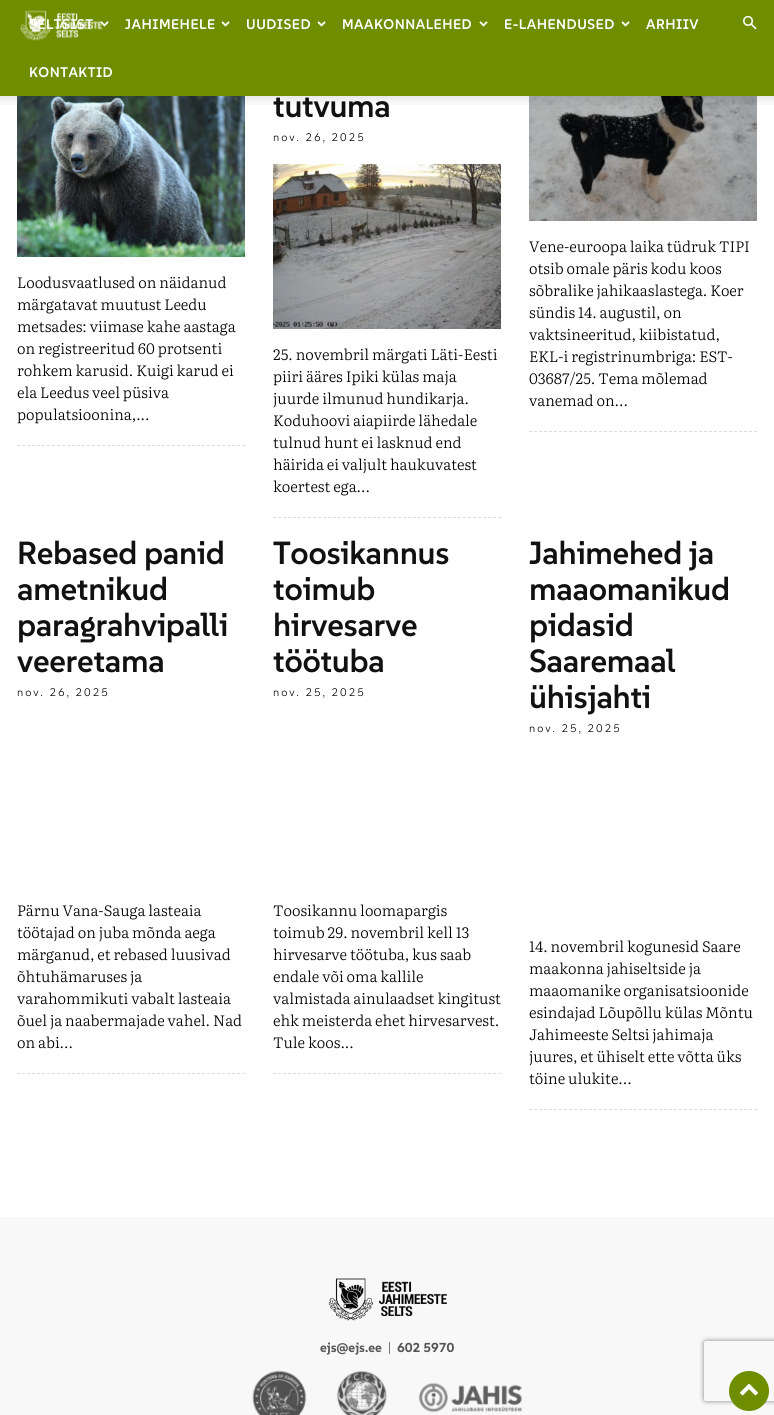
import math
import cairo

surface = cairo.ImageSurface(cairo.FORMAT_RGB24, 774, 1415)
ctx = cairo.Context(surface)
options = cairo.FontOptions()
options.set_hint_metrics(cairo.HINT_METRICS_OFF)
options.set_hint_style(cairo.HINT_STYLE_NONE)
ctx.set_font_options(options)
ctx.set_miter_limit(4)


def spaced_text(x, y, s, letter, word):
    ctx.move_to(x, y)
    for ch in s:
        ctx.show_text(ch)
        ctx.rel_move_to(letter + word * (ch == ' '), 0)


def round_rect(x, y, w, h, r):
    ctx.new_sub_path()
    for i, (u, v) in enumerate([(x + w - r, y + h - r), (x + r, y + h - r), (x + r, y + r), (x + w - r, y + r)]):
        ctx.arc(u, v, r, i * math.pi / 2, (i + 1) * math.pi / 2)
    ctx.close_path()


def shadow(x, y, w, h, r, blur, alpha):
    ctx.push_group_with_content(cairo.CONTENT_ALPHA)
    ctx.set_operator(cairo.OPERATOR_SOURCE)
    for i in range(15, -16, -2):
        e = blur * i / 6
        if min(w, h) + 2 * e > 0:
            ctx.set_source_rgba(0, 0, 0, alpha * math.erfc((i - 1) / 8.5) / 2)
            round_rect(x - e, y - e, w + 2 * e, h + 2 * e, max(0, min(r + e + blur * .6, min(w, h) / 2 + e)))
            ctx.fill()
    ctx.mask(ctx.pop_group())


def picture(path, x, y, w, h):
    ctx.save()
    ctx.set_source_surface(cairo.ImageSurface.create_from_png(path), x, y)
    ctx.rectangle(x, y, w, h)
    ctx.fill()
    ctx.restore()


ctx.set_source_rgb(1, 1, 1)
ctx.paint()
ctx.set_source_rgb(0.431, 0.557, 0)
ctx.rectangle(0, 0, 774, 96)
ctx.fill()
picture("img1.png", 20, 10, 82, 31)
ctx.select_font_face("SUSE SemiBold")
ctx.set_font_size(14)
ctx.set_source_rgb(1, 1, 1)
spaced_text(29, 29, "SELTSIST", 0.5, 0)
picture("img2.png", 100, 21, 9, 6)
spaced_text(125, 29, "JAHIMEHELE", 0.5, 0)
picture("img3.png", 221, 21, 9, 6)
spaced_text(246, 29, "UUDISED", 0.5, 0)
picture("img3.png", 317, 21, 9, 6)
spaced_text(342, 29, "MAAKONNALEHED", 0.5, 0)
picture("img3.png", 479, 21, 9, 6)
spaced_text(504, 29, "E-LAHENDUSED", 0.5, 0)
picture("img3.png", 621, 21, 9, 6)
spaced_text(646, 29, "ARHIIV", 0.5, 0)
spaced_text(29, 77, "KONTAKTID", 0.5, 0)
picture("img4.png", 743, 15, 14, 15)
picture("img6.png", 17, 96, 228, 161)
ctx.set_font_size(32)
ctx.set_source_rgb(0.067, 0.067, 0.067)
spaced_text(273, 117, "tutvuma", -0.3, 0)
picture("img8.png", 529, 96, 228, 125)
picture("img5.png", 0, 96, 774, 9)
ctx.new_path()
ctx.move_to(17, 445.5)
ctx.line_to(245, 445.5)
ctx.set_source_rgb(0.863, 0.863, 0.863)
ctx.set_line_width(1)
ctx.set_dash([3, 2])
ctx.stroke()
ctx.select_font_face("Literata Light")
ctx.set_font_size(15)
ctx.set_source_rgb(0, 0, 0)
ctx.move_to(17, 288)
ctx.show_text("Loodusvaatlused on näidanud")
ctx.move_to(17, 310)
ctx.show_text("märgatavat muutust Leedu")
ctx.move_to(17, 332)
ctx.show_text("metsades: viimase kahe aastaga")
ctx.move_to(17, 354)
ctx.show_text("on registreeritud 60 protsenti")
ctx.move_to(17, 376)
ctx.show_text("rohkem karusid. Kuigi karud ei")
ctx.move_to(17, 398)
ctx.show_text("ela Leedus veel püsiva")
ctx.move_to(17, 420)
ctx.show_text("populatsioonina,...")
ctx.new_path()
ctx.move_to(273, 517.5)
ctx.line_to(501, 517.5)
ctx.set_source_rgb(0.863, 0.863, 0.863)
ctx.stroke()
ctx.select_font_face("SUSE Light")
ctx.set_font_size(11)
ctx.set_source_rgb(0, 0, 0)
spaced_text(273, 141, "nov. 26, 2025", 2, 0)
picture("img7.png", 273, 164, 228, 165)
ctx.select_font_face("Literata Light")
ctx.set_font_size(15)
ctx.move_to(273, 360)
ctx.show_text("25. novembril märgati Läti-Eesti")
ctx.move_to(273, 382)
ctx.show_text("piiri ääres Ipiki külas maja")
ctx.move_to(273, 404)
ctx.show_text("juurde ilmunud hundikarja.")
ctx.move_to(273, 426)
ctx.show_text("Koduhoovi aiapiirde lähedale")
ctx.move_to(273, 448)
ctx.show_text("tulnud hunt ei lasknud end")
ctx.move_to(273, 470)
ctx.show_text("häirida ei valjult haukuvatest")
ctx.move_to(273, 492)
ctx.show_text("koertest ega...")
ctx.new_path()
ctx.move_to(529, 431.5)
ctx.line_to(757, 431.5)
ctx.set_source_rgb(0.863, 0.863, 0.863)
ctx.stroke()
ctx.set_source_rgb(0, 0, 0)
ctx.move_to(529, 252)
ctx.show_text("Vene-euroopa laika tüdruk TIPI")
ctx.move_to(529, 274)
ctx.show_text("otsib omale päris kodu koos")
ctx.move_to(529, 296)
ctx.show_text("sõbralike jahikaaslastega. Koer")
ctx.move_to(529, 318)
ctx.show_text("sündis 14. augustil, on")
ctx.move_to(529, 340)
ctx.show_text("vaktsineeritud, kiibistatud,")
ctx.move_to(529, 362)
ctx.show_text("EKL-i registrinumbriga: EST-")
ctx.move_to(529, 384)
ctx.show_text("03687/25. Tema mõlemad")
ctx.move_to(529, 406)
ctx.show_text("vanemad on...")
ctx.new_path()
ctx.move_to(17, 1073.5)
ctx.line_to(245, 1073.5)
ctx.set_source_rgb(0.863, 0.863, 0.863)
ctx.stroke()
ctx.select_font_face("SUSE SemiBold")
ctx.set_font_size(32)
ctx.set_source_rgb(0.067, 0.067, 0.067)
spaced_text(17, 564, "Rebased panid", -0.3, 0)
spaced_text(17, 600, "ametnikud", -0.3, 0)
spaced_text(17, 636, "paragrahvipalli", -0.3, 0)
spaced_text(17, 672, "veeretama", -0.3, 0)
ctx.select_font_face("SUSE Light")
ctx.set_font_size(11)
ctx.set_source_rgb(0, 0, 0)
spaced_text(17, 696, "nov. 26, 2025", 2, 0)
ctx.select_font_face("Literata Light")
ctx.set_font_size(15)
ctx.move_to(17, 916)
ctx.show_text("Pärnu Vana-Sauga lasteaia")
ctx.move_to(17, 938)
ctx.show_text("töötajad on juba mõnda aega")
ctx.move_to(17, 960)
ctx.show_text("märganud, et rebased luusivad")
ctx.move_to(17, 982)
ctx.show_text("õhtuhämaruses ja")
ctx.move_to(17, 1004)
ctx.show_text("varahommikuti vabalt lasteaia")
ctx.move_to(17, 1026)
ctx.show_text("õuel ja naabermajade vahel. Nad")
ctx.move_to(17, 1048)
ctx.show_text("on abi...")
ctx.new_path()
ctx.move_to(273, 1073.5)
ctx.line_to(501, 1073.5)
ctx.set_source_rgb(0.863, 0.863, 0.863)
ctx.stroke()
ctx.select_font_face("SUSE SemiBold")
ctx.set_font_size(32)
ctx.set_source_rgb(0.067, 0.067, 0.067)
spaced_text(273, 564, "Toosikannus", -0.3, 0)
spaced_text(273, 600, "toimub", -0.3, 0)
spaced_text(273, 636, "hirvesarve", -0.3, 0)
spaced_text(273, 672, "töötuba", -0.3, 0)
ctx.select_font_face("SUSE Light")
ctx.set_font_size(11)
ctx.set_source_rgb(0, 0, 0)
spaced_text(273, 696, "nov. 25, 2025", 2, 0)
ctx.select_font_face("Literata Light")
ctx.set_font_size(15)
ctx.move_to(273, 916)
ctx.show_text("Toosikannu loomapargis")
ctx.move_to(273, 938)
ctx.show_text("toimub 29. novembril kell 13")
ctx.move_to(273, 960)
ctx.show_text("hirvesarve töötuba, kus saab")
ctx.move_to(273, 982)
ctx.show_text("endale või oma kallile")
ctx.move_to(273, 1004)
ctx.show_text("valmistada ainulaadset kingitust")
ctx.move_to(273, 1026)
ctx.show_text("ehk meisterda ehet hirvesarvest.")
ctx.move_to(273, 1048)
ctx.show_text("Tule koos...")
ctx.new_path()
ctx.move_to(529, 1109.5)
ctx.line_to(757, 1109.5)
ctx.set_source_rgb(0.863, 0.863, 0.863)
ctx.stroke()
ctx.select_font_face("SUSE SemiBold")
ctx.set_font_size(32)
ctx.set_source_rgb(0.067, 0.067, 0.067)
spaced_text(529, 564, "Jahimehed ja", -0.3, 0)
spaced_text(529, 600, "maaomanikud", -0.3, 0)
spaced_text(529, 636, "pidasid", -0.3, 0)
spaced_text(529, 672, "Saaremaal", -0.3, 0)
spaced_text(529, 708, "ühisjahti", -0.3, 0)
ctx.select_font_face("SUSE Light")
ctx.set_font_size(11)
ctx.set_source_rgb(0, 0, 0)
spaced_text(529, 732, "nov. 25, 2025", 2, 0)
ctx.select_font_face("Literata Light")
ctx.set_font_size(15)
ctx.move_to(529, 952)
ctx.show_text("14. novembril kogunesid Saare")
ctx.move_to(529, 974)
ctx.show_text("maakonna jahiseltside ja")
ctx.move_to(529, 996)
ctx.show_text("maaomanike organisatsioonide")
ctx.move_to(529, 1018)
ctx.show_text("esindajad Lõupõllu külas Mõntu")
ctx.move_to(529, 1040)
ctx.show_text("Jahimeeste Seltsi jahimaja")
ctx.move_to(529, 1062)
ctx.show_text("juures, et ühiselt ette võtta üks")
ctx.move_to(529, 1084)
ctx.show_text("töine ulukite...")
ctx.set_source_rgb(0.969, 0.969, 0.969)
ctx.rectangle(0, 1217, 774, 198)
ctx.fill()
picture("img9.png", 328, 1278, 119, 43)
ctx.select_font_face("SUSE", cairo.FONT_SLANT_NORMAL, cairo.FONT_WEIGHT_BOLD)
ctx.set_font_size(13)
ctx.set_source_rgb(0.333, 0.333, 0.333)
ctx.move_to(320, 1352)
ctx.show_text("ejs@ejs.ee")
ctx.select_font_face("SUSE Light")
ctx.move_to(388, 1352)
ctx.show_text("|")
ctx.select_font_face("SUSE", cairo.FONT_SLANT_NORMAL, cairo.FONT_WEIGHT_BOLD)
ctx.move_to(397, 1352)
ctx.show_text("602 5970")
picture("img10.png", 252, 1370, 271, 45)
ctx.save()
ctx.set_fill_rule(cairo.FILL_RULE_EVEN_ODD)
ctx.new_path()
ctx.move_to(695, 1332)
ctx.line_to(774, 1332)
ctx.line_to(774, 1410)
ctx.line_to(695, 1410)
ctx.close_path()
ctx.move_to(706, 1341)
ctx.line_to(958, 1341)
ctx.curve_to(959, 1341, 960, 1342, 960, 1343)
ctx.line_to(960, 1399)
ctx.curve_to(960, 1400, 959, 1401, 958, 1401)
ctx.line_to(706, 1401)
ctx.curve_to(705, 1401, 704, 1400, 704, 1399)
ctx.line_to(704, 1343)
ctx.curve_to(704, 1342, 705, 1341, 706, 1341)
ctx.close_path()
ctx.clip()
ctx.set_source_rgb(0.502, 0.502, 0.502)
shadow(704, 1341, 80, 60, 2, 2.5, 1)
ctx.restore()
ctx.set_source_rgb(0.431, 0.557, 0)
ctx.arc(749, 1391, 20, 0, 2 * math.pi)
ctx.fill()
picture("img11.png", 740, 1383, 18, 13)
surface.write_to_png("page.png")
